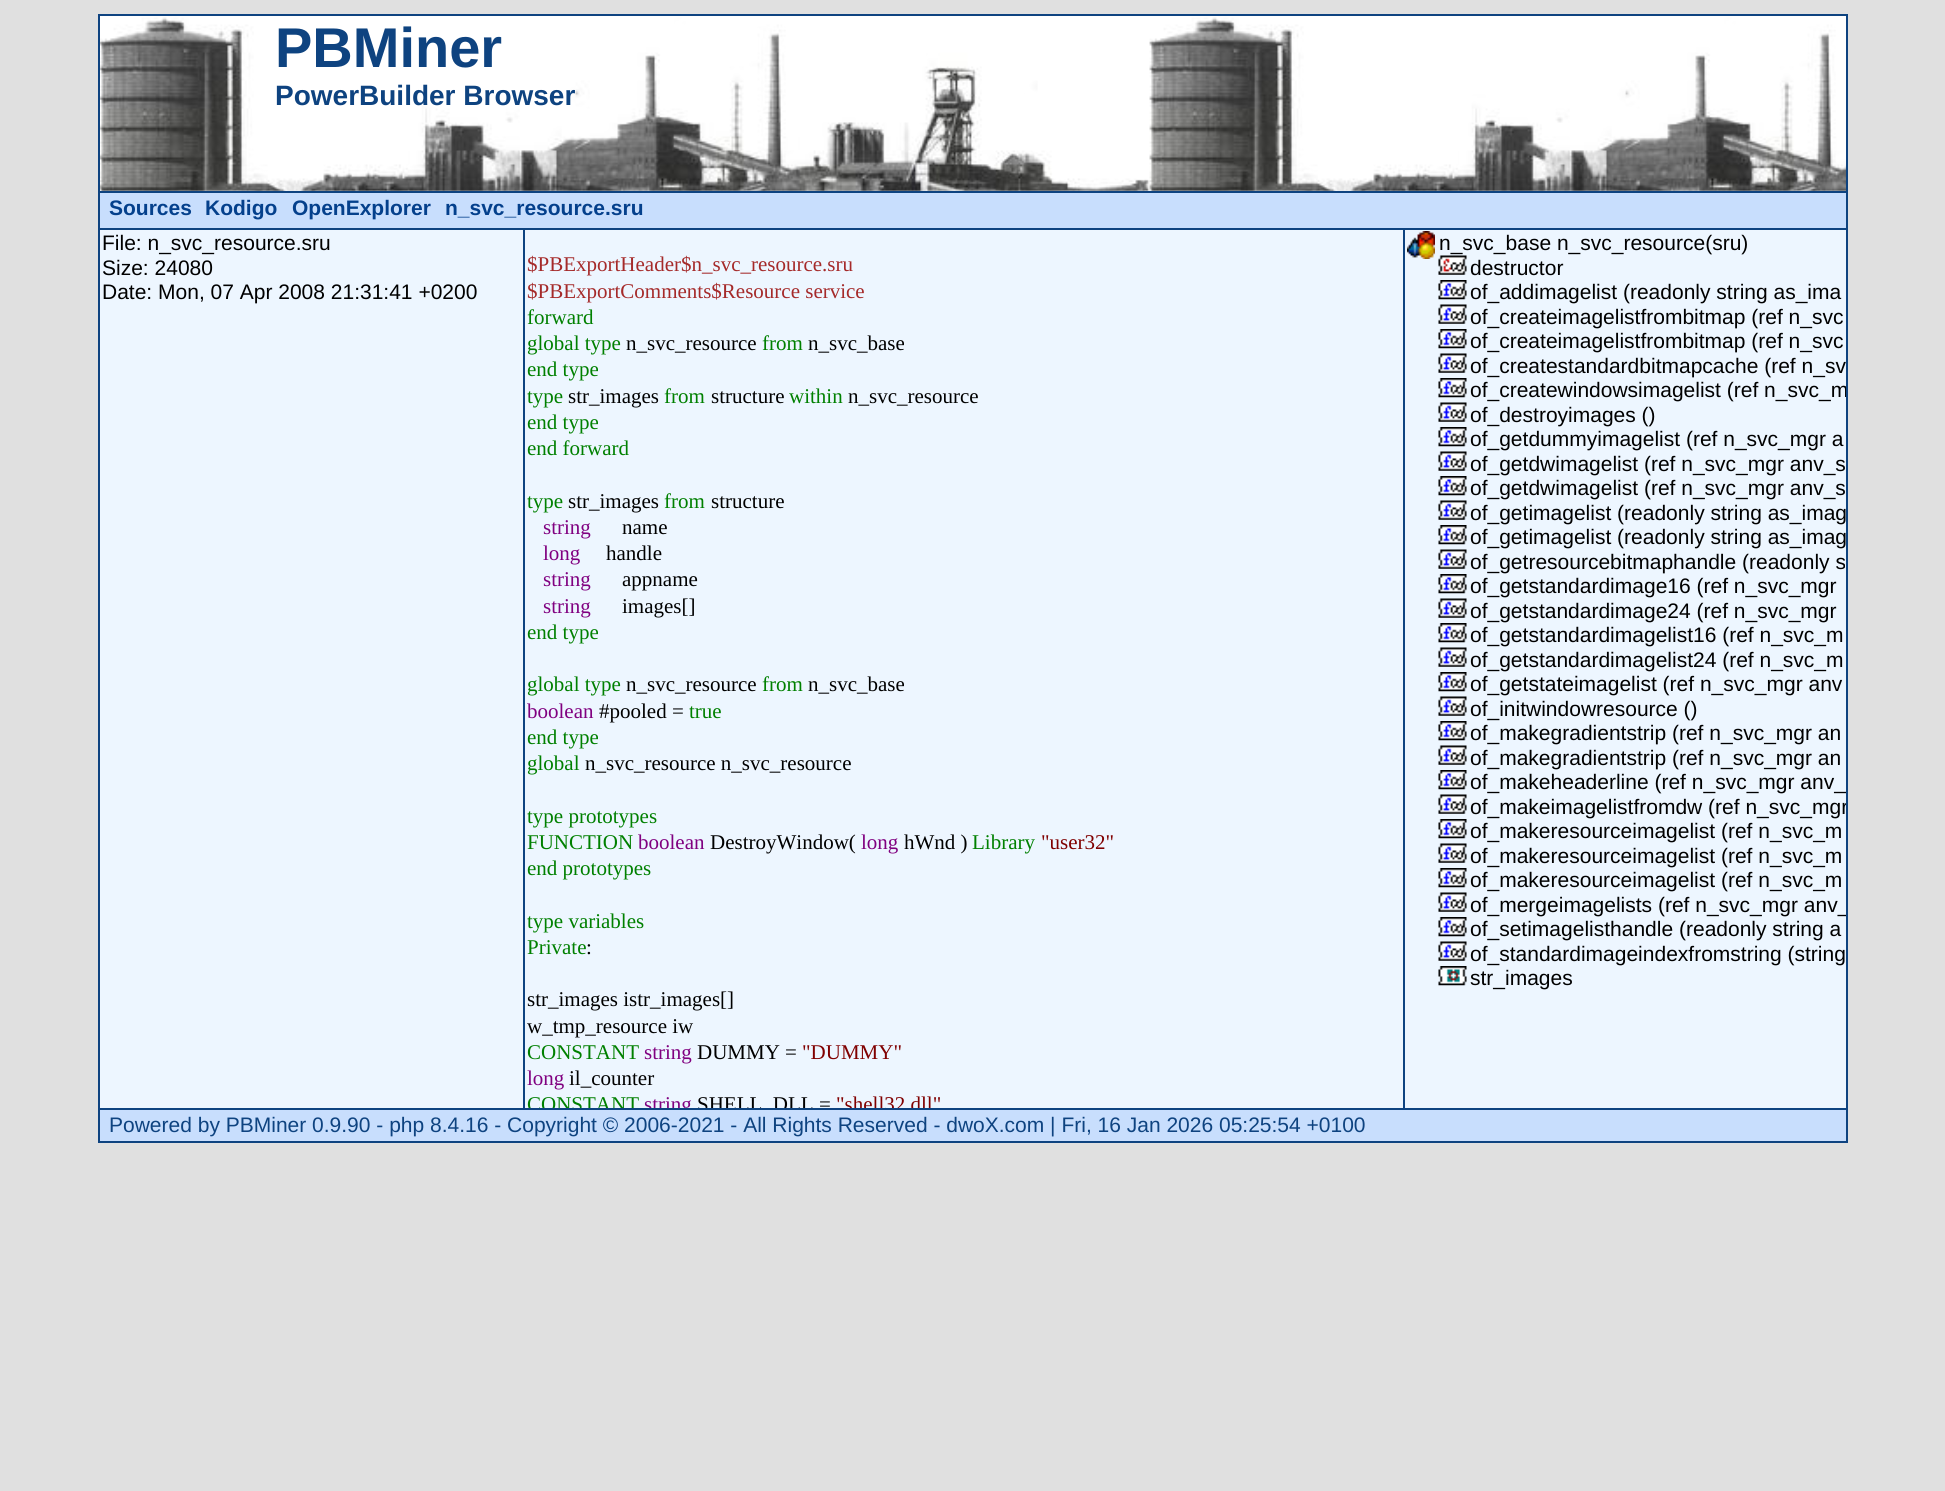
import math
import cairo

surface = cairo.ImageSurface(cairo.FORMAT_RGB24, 1945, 1491)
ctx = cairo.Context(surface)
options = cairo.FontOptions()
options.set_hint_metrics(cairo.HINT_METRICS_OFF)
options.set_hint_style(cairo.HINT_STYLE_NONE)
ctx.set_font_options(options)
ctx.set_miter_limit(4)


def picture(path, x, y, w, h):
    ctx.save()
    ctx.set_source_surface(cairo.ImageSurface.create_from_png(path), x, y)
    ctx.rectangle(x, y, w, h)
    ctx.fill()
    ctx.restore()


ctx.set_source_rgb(0.878, 0.878, 0.878)
ctx.paint()
ctx.set_source_rgb(0.929, 0.961, 1)
ctx.rectangle(100, 190, 1746, 918)
ctx.fill()
picture("img1.png", 100, 16, 1746, 175)
ctx.set_source_rgb(0.055, 0.263, 0.502)
ctx.rectangle(98, 14, 1750, 2)
ctx.fill()
ctx.rectangle(1846, 14, 2, 177)
ctx.fill()
ctx.rectangle(98, 14, 2, 177)
ctx.fill()
ctx.select_font_face("Liberation Sans", cairo.FONT_SLANT_NORMAL, cairo.FONT_WEIGHT_BOLD)
ctx.set_font_size(56)
ctx.move_to(275, 67)
ctx.show_text("PBMiner")
ctx.set_font_size(28)
ctx.move_to(275, 105)
ctx.show_text("PowerBuilder Browser")
ctx.set_source_rgb(0.784, 0.871, 0.992)
ctx.rectangle(100, 193, 1746, 35)
ctx.fill()
ctx.set_source_rgb(0.055, 0.263, 0.502)
ctx.rectangle(98, 191, 1750, 2)
ctx.fill()
ctx.rectangle(1846, 191, 2, 37)
ctx.fill()
ctx.rectangle(98, 191, 2, 37)
ctx.fill()
ctx.set_font_size(21)
ctx.set_source_rgb(0.016, 0.251, 0.549)
ctx.move_to(109, 215)
ctx.show_text("Sources")
ctx.move_to(205, 215)
ctx.show_text("Kodigo")
ctx.move_to(292, 215)
ctx.show_text("OpenExplorer")
ctx.move_to(445, 215)
ctx.show_text("n_svc_resource.sru")
ctx.set_source_rgb(0.055, 0.263, 0.502)
ctx.rectangle(98, 228, 425, 2)
ctx.fill()
ctx.rectangle(98, 1108, 425, 2)
ctx.fill()
ctx.rectangle(98, 228, 2, 882)
ctx.fill()
ctx.select_font_face("Liberation Sans")
ctx.set_source_rgb(0, 0, 0)
ctx.move_to(102, 250)
ctx.show_text("File: n_svc_resource.sru")
ctx.move_to(102, 275)
ctx.show_text("Size: 24080")
ctx.move_to(102, 299)
ctx.show_text("Date: Mon, 07 Apr 2008 21:31:41 +0200")
ctx.rectangle(524, 229, 880, 880)
ctx.set_source_rgb(0.055, 0.263, 0.502)
ctx.stroke()
ctx.select_font_face("Liberation Serif")
ctx.set_source_rgb(0.647, 0.165, 0.165)
ctx.move_to(527, 271)
ctx.show_text("$PBExportHeader$n_svc_resource.sru")
ctx.move_to(527, 298)
ctx.show_text("$PBExportComments$Resource service")
ctx.set_source_rgb(0, 0.502, 0)
ctx.move_to(527, 324)
ctx.show_text("forward")
ctx.move_to(527, 350)
ctx.show_text("global type")
ctx.set_source_rgb(0, 0, 0)
ctx.move_to(626, 350)
ctx.show_text("n_svc_resource")
ctx.set_source_rgb(0, 0.502, 0)
ctx.move_to(762, 350)
ctx.show_text("from")
ctx.set_source_rgb(0, 0, 0)
ctx.move_to(808, 350)
ctx.show_text("n_svc_base")
ctx.set_source_rgb(0, 0.502, 0)
ctx.move_to(527, 376)
ctx.show_text("end type")
ctx.move_to(527, 403)
ctx.show_text("type")
ctx.set_source_rgb(0, 0, 0)
ctx.move_to(568, 403)
ctx.show_text("str_images")
ctx.set_source_rgb(0, 0.502, 0)
ctx.move_to(664, 403)
ctx.show_text("from")
ctx.set_source_rgb(0, 0, 0)
ctx.move_to(711, 403)
ctx.show_text("structure")
ctx.set_source_rgb(0, 0.502, 0)
ctx.move_to(789, 403)
ctx.show_text("within")
ctx.set_source_rgb(0, 0, 0)
ctx.move_to(848, 403)
ctx.show_text("n_svc_resource")
ctx.set_source_rgb(0, 0.502, 0)
ctx.move_to(527, 429)
ctx.show_text("end type")
ctx.move_to(527, 455)
ctx.show_text("end forward")
ctx.move_to(527, 508)
ctx.show_text("type")
ctx.set_source_rgb(0, 0, 0)
ctx.move_to(568, 508)
ctx.show_text("str_images")
ctx.set_source_rgb(0, 0.502, 0)
ctx.move_to(664, 508)
ctx.show_text("from")
ctx.set_source_rgb(0, 0, 0)
ctx.move_to(711, 508)
ctx.show_text("structure")
ctx.set_source_rgb(0.502, 0, 0.502)
ctx.move_to(543, 534)
ctx.show_text("string")
ctx.set_source_rgb(0, 0, 0)
ctx.move_to(622, 534)
ctx.show_text("name")
ctx.set_source_rgb(0.502, 0, 0.502)
ctx.move_to(543, 560)
ctx.show_text("long")
ctx.set_source_rgb(0, 0, 0)
ctx.move_to(606, 560)
ctx.show_text("handle")
ctx.set_source_rgb(0.502, 0, 0.502)
ctx.move_to(543, 586)
ctx.show_text("string")
ctx.set_source_rgb(0, 0, 0)
ctx.move_to(622, 586)
ctx.show_text("appname")
ctx.set_source_rgb(0.502, 0, 0.502)
ctx.move_to(543, 613)
ctx.show_text("string")
ctx.set_source_rgb(0, 0, 0)
ctx.move_to(622, 613)
ctx.show_text("images[]")
ctx.set_source_rgb(0, 0.502, 0)
ctx.move_to(527, 639)
ctx.show_text("end type")
ctx.move_to(527, 691)
ctx.show_text("global type")
ctx.set_source_rgb(0, 0, 0)
ctx.move_to(626, 691)
ctx.show_text("n_svc_resource")
ctx.set_source_rgb(0, 0.502, 0)
ctx.move_to(762, 691)
ctx.show_text("from")
ctx.set_source_rgb(0, 0, 0)
ctx.move_to(808, 691)
ctx.show_text("n_svc_base")
ctx.set_source_rgb(0.502, 0, 0.502)
ctx.move_to(527, 718)
ctx.show_text("boolean")
ctx.set_source_rgb(0, 0, 0)
ctx.move_to(599, 718)
ctx.show_text("#pooled =")
ctx.set_source_rgb(0, 0.502, 0)
ctx.move_to(689, 718)
ctx.show_text("true")
ctx.move_to(527, 744)
ctx.show_text("end type")
ctx.move_to(527, 770)
ctx.show_text("global")
ctx.set_source_rgb(0, 0, 0)
ctx.move_to(585, 770)
ctx.show_text("n_svc_resource n_svc_resource")
ctx.set_source_rgb(0, 0.502, 0)
ctx.move_to(527, 823)
ctx.show_text("type prototypes")
ctx.move_to(527, 849)
ctx.show_text("FUNCTION")
ctx.set_source_rgb(0.502, 0, 0.502)
ctx.move_to(638, 849)
ctx.show_text("boolean")
ctx.set_source_rgb(0, 0, 0)
ctx.move_to(710, 849)
ctx.show_text("DestroyWindow(")
ctx.set_source_rgb(0.502, 0, 0.502)
ctx.move_to(861, 849)
ctx.show_text("long")
ctx.set_source_rgb(0, 0, 0)
ctx.move_to(904, 849)
ctx.show_text("hWnd )")
ctx.set_source_rgb(0, 0.502, 0)
ctx.move_to(972, 849)
ctx.show_text("Library")
ctx.set_source_rgb(0.502, 0, 0)
ctx.move_to(1041, 849)
ctx.show_text("\"user32\"")
ctx.set_source_rgb(0, 0.502, 0)
ctx.move_to(527, 875)
ctx.show_text("end prototypes")
ctx.move_to(527, 928)
ctx.show_text("type variables")
ctx.move_to(527, 954)
ctx.show_text("Private")
ctx.set_source_rgb(0, 0, 0)
ctx.move_to(586, 954)
ctx.show_text(":")
ctx.move_to(527, 1006)
ctx.show_text("str_images istr_images[]")
ctx.move_to(527, 1033)
ctx.show_text("w_tmp_resource iw")
ctx.set_source_rgb(0, 0.502, 0)
ctx.move_to(527, 1059)
ctx.show_text("CONSTANT")
ctx.set_source_rgb(0.502, 0, 0.502)
ctx.move_to(644, 1059)
ctx.show_text("string")
ctx.set_source_rgb(0, 0, 0)
ctx.move_to(697, 1059)
ctx.show_text("DUMMY =")
ctx.set_source_rgb(0.502, 0, 0)
ctx.move_to(802, 1059)
ctx.show_text("\"DUMMY\"")
ctx.set_source_rgb(0.502, 0, 0.502)
ctx.move_to(527, 1085)
ctx.show_text("long")
ctx.set_source_rgb(0, 0, 0)
ctx.move_to(569, 1085)
ctx.show_text("il_counter")
ctx.save()
ctx.rectangle(525, 229, 879, 879)
ctx.clip()
ctx.set_source_rgb(0, 0.502, 0)
ctx.move_to(527, 1111)
ctx.show_text("CONSTANT")
ctx.set_source_rgb(0.502, 0, 0.502)
ctx.move_to(644, 1111)
ctx.show_text("string")
ctx.set_source_rgb(0, 0, 0)
ctx.move_to(697, 1111)
ctx.show_text("SHELL_DLL =")
ctx.set_source_rgb(0.502, 0, 0)
ctx.move_to(836, 1111)
ctx.show_text("\"shell32.dll\"")
ctx.restore()
ctx.set_source_rgb(0.055, 0.263, 0.502)
ctx.rectangle(1405, 228, 443, 2)
ctx.fill()
ctx.rectangle(1846, 228, 2, 882)
ctx.fill()
ctx.rectangle(1405, 1108, 443, 2)
ctx.fill()
picture("img2.png", 1407, 231, 28, 28)
ctx.select_font_face("Liberation Sans")
ctx.set_source_rgb(0, 0, 0)
ctx.move_to(1439, 250)
ctx.show_text("n_svc_base n_svc_resource(sru)")
picture("img3.png", 1438, 255, 29, 20)
ctx.move_to(1470, 275)
ctx.show_text("destructor")
picture("img4.png", 1438, 280, 29, 20)
ctx.move_to(1470, 299)
ctx.show_text("of_addimagelist (readonly string as_ima")
picture("img5.png", 1438, 304, 29, 20)
ctx.move_to(1470, 324)
ctx.show_text("of_createimagelistfrombitmap (ref n_svc")
picture("img4.png", 1438, 329, 29, 20)
ctx.move_to(1470, 348)
ctx.show_text("of_createimagelistfrombitmap (ref n_svc")
picture("img5.png", 1438, 353, 29, 20)
ctx.move_to(1470, 373)
ctx.show_text("of_createstandardbitmapcache (ref n_sv")
picture("img4.png", 1438, 378, 29, 20)
ctx.save()
ctx.rectangle(1405, 229, 441, 879)
ctx.clip()
ctx.move_to(1470, 397)
ctx.show_text("of_createwindowsimagelist (ref n_svc_m")
ctx.restore()
picture("img5.png", 1438, 402, 29, 20)
ctx.move_to(1470, 422)
ctx.show_text("of_destroyimages ()")
picture("img4.png", 1438, 427, 29, 20)
ctx.move_to(1470, 446)
ctx.show_text("of_getdummyimagelist (ref n_svc_mgr a")
picture("img5.png", 1438, 451, 29, 20)
ctx.move_to(1470, 471)
ctx.show_text("of_getdwimagelist (ref n_svc_mgr anv_s")
picture("img4.png", 1438, 476, 29, 20)
ctx.move_to(1470, 495)
ctx.show_text("of_getdwimagelist (ref n_svc_mgr anv_s")
picture("img5.png", 1438, 500, 29, 20)
ctx.move_to(1470, 520)
ctx.show_text("of_getimagelist (readonly string as_imag")
picture("img4.png", 1438, 525, 29, 20)
ctx.move_to(1470, 544)
ctx.show_text("of_getimagelist (readonly string as_imag")
picture("img5.png", 1438, 549, 29, 20)
ctx.move_to(1470, 569)
ctx.show_text("of_getresourcebitmaphandle (readonly s")
picture("img4.png", 1438, 574, 29, 20)
ctx.move_to(1470, 593)
ctx.show_text("of_getstandardimage16 (ref n_svc_mgr")
picture("img5.png", 1438, 598, 29, 20)
ctx.move_to(1470, 618)
ctx.show_text("of_getstandardimage24 (ref n_svc_mgr")
picture("img4.png", 1438, 623, 29, 20)
ctx.move_to(1470, 642)
ctx.show_text("of_getstandardimagelist16 (ref n_svc_m")
picture("img5.png", 1438, 647, 29, 20)
ctx.move_to(1470, 667)
ctx.show_text("of_getstandardimagelist24 (ref n_svc_m")
picture("img4.png", 1438, 672, 29, 20)
ctx.move_to(1470, 691)
ctx.show_text("of_getstateimagelist (ref n_svc_mgr anv")
picture("img5.png", 1438, 696, 29, 20)
ctx.move_to(1470, 716)
ctx.show_text("of_initwindowresource ()")
picture("img4.png", 1438, 721, 29, 20)
ctx.move_to(1470, 740)
ctx.show_text("of_makegradientstrip (ref n_svc_mgr an")
picture("img5.png", 1438, 745, 29, 20)
ctx.move_to(1470, 765)
ctx.show_text("of_makegradientstrip (ref n_svc_mgr an")
picture("img4.png", 1438, 770, 29, 20)
ctx.move_to(1470, 789)
ctx.show_text("of_makeheaderline (ref n_svc_mgr anv_")
picture("img5.png", 1438, 794, 29, 20)
ctx.save()
ctx.rectangle(1405, 229, 441, 879)
ctx.clip()
ctx.move_to(1470, 814)
ctx.show_text("of_makeimagelistfromdw (ref n_svc_mgr")
ctx.restore()
picture("img4.png", 1438, 819, 29, 20)
ctx.move_to(1470, 838)
ctx.show_text("of_makeresourceimagelist (ref n_svc_m")
picture("img5.png", 1438, 843, 29, 20)
ctx.move_to(1470, 863)
ctx.show_text("of_makeresourceimagelist (ref n_svc_m")
picture("img4.png", 1438, 868, 29, 20)
ctx.move_to(1470, 887)
ctx.show_text("of_makeresourceimagelist (ref n_svc_m")
picture("img5.png", 1438, 892, 29, 20)
ctx.save()
ctx.rectangle(1405, 229, 441, 879)
ctx.clip()
ctx.move_to(1470, 912)
ctx.show_text("of_mergeimagelists (ref n_svc_mgr anv_")
ctx.restore()
picture("img4.png", 1438, 917, 29, 20)
ctx.move_to(1470, 936)
ctx.show_text("of_setimagelisthandle (readonly string a")
picture("img5.png", 1438, 941, 29, 20)
ctx.move_to(1470, 961)
ctx.show_text("of_standardimageindexfromstring (string")
picture("img6.png", 1438, 966, 29, 20)
ctx.move_to(1470, 985)
ctx.show_text("str_images")
ctx.set_source_rgb(0.784, 0.871, 0.992)
ctx.rectangle(100, 1110, 1746, 31)
ctx.fill()
ctx.set_source_rgb(0.055, 0.263, 0.502)
ctx.rectangle(1846, 1110, 2, 33)
ctx.fill()
ctx.rectangle(98, 1141, 1750, 2)
ctx.fill()
ctx.rectangle(98, 1110, 2, 33)
ctx.fill()
ctx.move_to(109, 1132)
ctx.show_text("Powered by PBMiner 0.9.90 - php 8.4.16 - Copyright © 2006-2021 - All Rights Reserved - dwoX.com | Fri, 16 Jan 2026 05:25:54 +0100")
surface.write_to_png("page.png")
